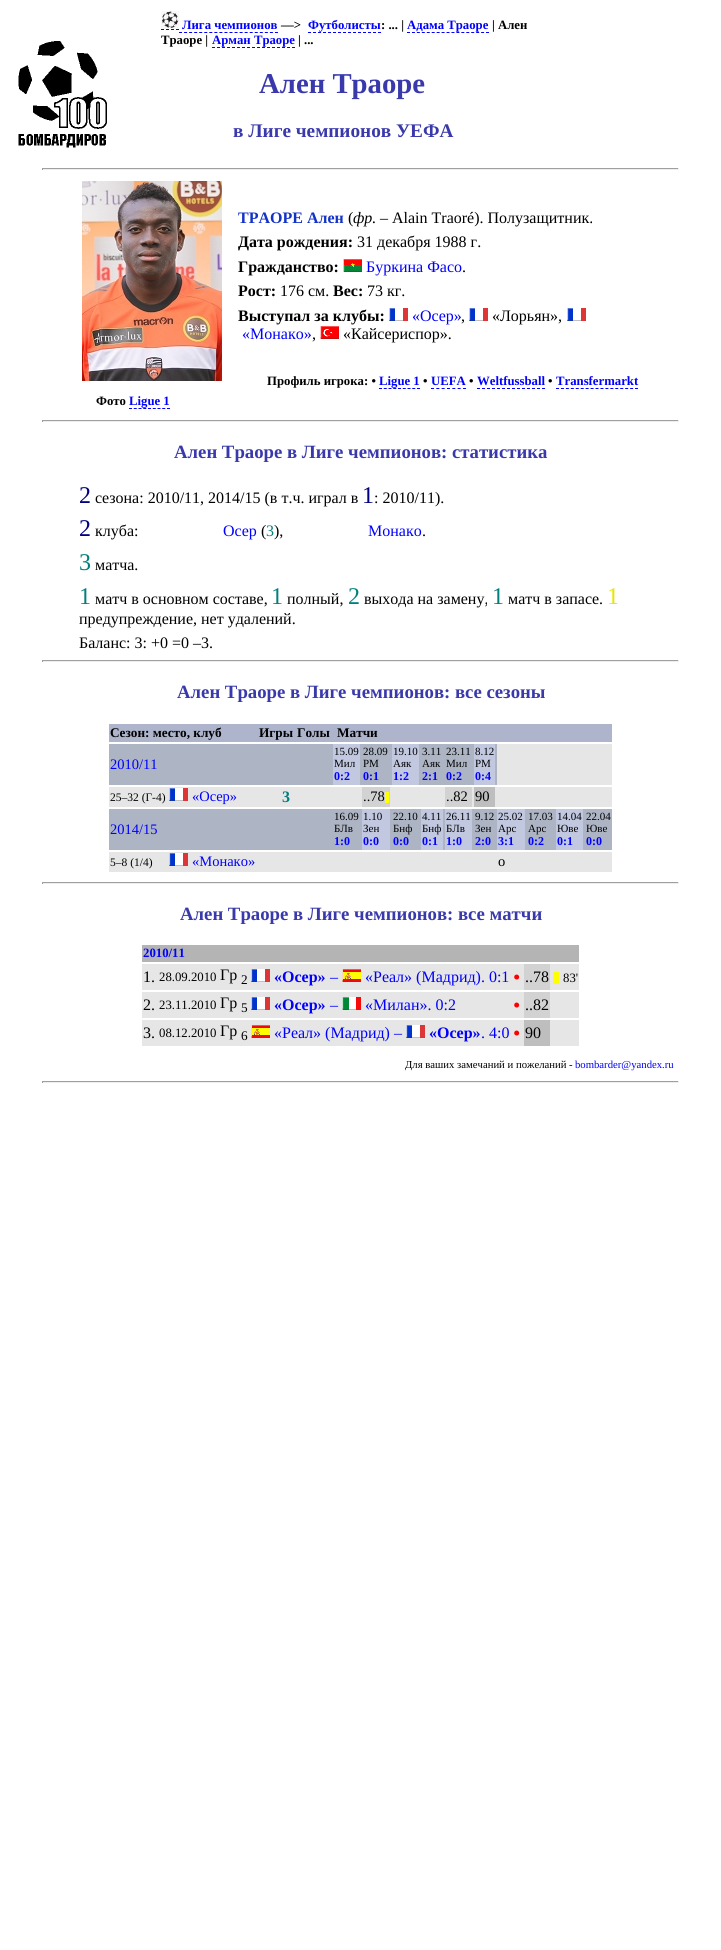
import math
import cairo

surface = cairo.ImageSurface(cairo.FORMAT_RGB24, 721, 1950)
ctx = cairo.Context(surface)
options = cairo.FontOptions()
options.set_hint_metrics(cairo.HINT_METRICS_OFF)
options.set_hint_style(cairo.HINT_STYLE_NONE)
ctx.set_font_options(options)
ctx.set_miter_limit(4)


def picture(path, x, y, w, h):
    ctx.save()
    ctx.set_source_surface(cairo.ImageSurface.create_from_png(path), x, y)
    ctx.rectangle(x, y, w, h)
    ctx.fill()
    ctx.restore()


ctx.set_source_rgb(1, 1, 1)
ctx.paint()
picture("img1.png", 18, 41, 89, 107)
picture("img2.png", 161, 11, 18, 18)
ctx.select_font_face("Liberation Serif", cairo.FONT_SLANT_NORMAL, cairo.FONT_WEIGHT_BOLD)
ctx.set_font_size(12.75)
ctx.set_source_rgb(0, 0, 1)
ctx.move_to(182, 29)
ctx.show_text("Лига чемпионов")
ctx.new_path()
ctx.move_to(161, 29.5)
ctx.line_to(179, 29.5)
ctx.set_line_width(1)
ctx.set_dash([3, 2])
ctx.stroke()
ctx.new_path()
ctx.move_to(179, 32.5)
ctx.line_to(278, 32.5)
ctx.set_dash([3, 2.05])
ctx.stroke()
ctx.set_source_rgb(0, 0, 0)
ctx.move_to(281, 29)
ctx.show_text("—>")
ctx.set_source_rgb(0, 0, 1)
ctx.move_to(308, 29)
ctx.show_text("Футболисты")
ctx.new_path()
ctx.move_to(308, 32.5)
ctx.line_to(381, 32.5)
ctx.set_dash([3, 2])
ctx.stroke()
ctx.set_source_rgb(0, 0, 0)
ctx.move_to(381, 29)
ctx.show_text(": ... |")
ctx.set_source_rgb(0, 0, 1)
ctx.move_to(407, 29)
ctx.show_text("Адама Траоре")
ctx.new_path()
ctx.move_to(407, 32.5)
ctx.line_to(489, 32.5)
ctx.set_dash([3, 1.94])
ctx.stroke()
ctx.set_source_rgb(0, 0, 0)
ctx.move_to(492, 29)
ctx.show_text("| Ален")
ctx.move_to(161, 44)
ctx.show_text("Траоре |")
ctx.set_source_rgb(0, 0, 1)
ctx.move_to(212, 44)
ctx.show_text("Арман Траоре")
ctx.new_path()
ctx.move_to(212, 47.5)
ctx.line_to(295, 47.5)
ctx.set_dash([3, 2])
ctx.stroke()
ctx.set_source_rgb(0, 0, 0)
ctx.move_to(298, 44)
ctx.show_text("| ...")
ctx.set_font_size(28.75)
ctx.set_source_rgb(0.224, 0.224, 0.675)
ctx.move_to(259, 93)
ctx.show_text("Ален Траоре")
ctx.set_font_size(19.25)
ctx.move_to(233, 137)
ctx.show_text("в Лиге чемпионов УЕФА")
ctx.set_source_rgb(0.624, 0.624, 0.624)
ctx.rectangle(42, 168, 637, 1)
ctx.fill()
ctx.set_source_rgb(0.933, 0.933, 0.933)
ctx.rectangle(678, 168, 1, 2)
ctx.fill()
ctx.rectangle(42, 169, 637, 1)
ctx.fill()
ctx.set_source_rgb(0.624, 0.624, 0.624)
ctx.rectangle(42, 168, 1, 2)
ctx.fill()
ctx.set_font_size(16)
ctx.set_source_rgb(0.078, 0.196, 0.784)
ctx.move_to(238, 223)
ctx.show_text("ТРАОРЕ Ален")
ctx.select_font_face("Liberation Serif")
ctx.set_source_rgb(0, 0, 0)
ctx.move_to(348, 223)
ctx.show_text("(")
ctx.select_font_face("Liberation Serif", cairo.FONT_SLANT_ITALIC)
ctx.move_to(353, 223)
ctx.show_text("фр.")
ctx.select_font_face("Liberation Serif")
ctx.move_to(380, 223)
ctx.show_text("– Alain Traoré). Полузащитник.")
ctx.select_font_face("Liberation Serif", cairo.FONT_SLANT_NORMAL, cairo.FONT_WEIGHT_BOLD)
ctx.move_to(238, 247)
ctx.show_text("Дата рождения:")
ctx.select_font_face("Liberation Serif")
ctx.move_to(357, 247)
ctx.show_text("31 декабря 1988 г.")
ctx.select_font_face("Liberation Serif", cairo.FONT_SLANT_NORMAL, cairo.FONT_WEIGHT_BOLD)
ctx.move_to(238, 272)
ctx.show_text("Гражданство:")
picture("img3.png", 343, 259, 19, 13)
ctx.select_font_face("Liberation Serif")
ctx.set_source_rgb(0, 0, 1)
ctx.move_to(366, 272)
ctx.show_text("Буркина Фасо")
ctx.set_source_rgb(0, 0, 0)
ctx.move_to(462, 272)
ctx.show_text(".")
ctx.select_font_face("Liberation Serif", cairo.FONT_SLANT_NORMAL, cairo.FONT_WEIGHT_BOLD)
ctx.move_to(238, 296)
ctx.show_text("Рост:")
ctx.select_font_face("Liberation Serif")
ctx.move_to(280, 296)
ctx.show_text("176 см.")
ctx.select_font_face("Liberation Serif", cairo.FONT_SLANT_NORMAL, cairo.FONT_WEIGHT_BOLD)
ctx.move_to(333, 296)
ctx.show_text("Вес:")
ctx.select_font_face("Liberation Serif")
ctx.move_to(367, 296)
ctx.show_text("73 кг.")
ctx.select_font_face("Liberation Serif", cairo.FONT_SLANT_NORMAL, cairo.FONT_WEIGHT_BOLD)
ctx.move_to(238, 321)
ctx.show_text("Выступал за клубы:")
picture("img4.png", 389, 308, 19, 13)
ctx.select_font_face("Liberation Serif")
ctx.set_source_rgb(0, 0, 1)
ctx.move_to(412, 321)
ctx.show_text("«Осер»")
ctx.set_source_rgb(0, 0, 0)
ctx.move_to(461, 321)
ctx.show_text(",")
picture("img4.png", 469, 308, 19, 13)
ctx.move_to(492, 321)
ctx.show_text("«Лорьян»,")
picture("img4.png", 567, 308, 19, 13)
ctx.set_source_rgb(0, 0, 1)
ctx.move_to(242, 339)
ctx.show_text("«Монако»")
ctx.set_source_rgb(0, 0, 0)
ctx.move_to(312, 339)
ctx.show_text(",")
picture("img5.png", 320, 326, 19, 13)
ctx.move_to(343, 339)
ctx.show_text("«Кайсериспор».")
ctx.select_font_face("Liberation Serif", cairo.FONT_SLANT_NORMAL, cairo.FONT_WEIGHT_BOLD)
ctx.set_font_size(12.75)
ctx.move_to(267, 385)
ctx.show_text("Профиль игрока: •")
ctx.set_source_rgb(0, 0, 1)
ctx.move_to(379, 385)
ctx.show_text("Ligue 1")
ctx.new_path()
ctx.move_to(379, 388.5)
ctx.line_to(420, 388.5)
ctx.set_dash([3, 1.75])
ctx.stroke()
ctx.set_source_rgb(0, 0, 0)
ctx.move_to(423, 385)
ctx.show_text("•")
ctx.set_source_rgb(0, 0, 1)
ctx.move_to(431, 385)
ctx.show_text("UEFA")
ctx.new_path()
ctx.move_to(431, 388.5)
ctx.line_to(466, 388.5)
ctx.set_dash([3, 2.33])
ctx.stroke()
ctx.set_source_rgb(0, 0, 0)
ctx.move_to(469, 385)
ctx.show_text("•")
ctx.set_source_rgb(0, 0, 1)
ctx.move_to(477, 385)
ctx.show_text("Weltfussball")
ctx.new_path()
ctx.move_to(477, 388.5)
ctx.line_to(545, 388.5)
ctx.set_dash([3, 2])
ctx.stroke()
ctx.set_source_rgb(0, 0, 0)
ctx.move_to(548, 385)
ctx.show_text("•")
ctx.set_source_rgb(0, 0, 1)
ctx.move_to(556, 385)
ctx.show_text("Transfermarkt")
ctx.new_path()
ctx.move_to(556, 388.5)
ctx.line_to(638, 388.5)
ctx.set_dash([3, 1.94])
ctx.stroke()
picture("img6.png", 82, 181, 140, 200)
ctx.set_source_rgb(0, 0, 0)
ctx.move_to(96, 405)
ctx.show_text("Фото")
ctx.set_source_rgb(0, 0, 1)
ctx.move_to(129, 405)
ctx.show_text("Ligue 1")
ctx.new_path()
ctx.move_to(129, 408.5)
ctx.line_to(170, 408.5)
ctx.set_dash([3, 1.75])
ctx.stroke()
ctx.set_source_rgb(0.624, 0.624, 0.624)
ctx.rectangle(42, 420, 637, 1)
ctx.fill()
ctx.set_source_rgb(0.933, 0.933, 0.933)
ctx.rectangle(678, 420, 1, 2)
ctx.fill()
ctx.rectangle(42, 421, 637, 1)
ctx.fill()
ctx.set_source_rgb(0.624, 0.624, 0.624)
ctx.rectangle(42, 420, 1, 2)
ctx.fill()
ctx.set_font_size(18.75)
ctx.set_source_rgb(0.224, 0.224, 0.675)
ctx.move_to(174, 458)
ctx.show_text("Ален Траоре в Лиге чемпионов: статистика")
ctx.select_font_face("Liberation Serif")
ctx.set_font_size(24)
ctx.set_source_rgb(0, 0, 0.498)
ctx.move_to(79, 503)
ctx.show_text("2")
ctx.set_font_size(16)
ctx.set_source_rgb(0, 0, 0)
ctx.move_to(95, 503)
ctx.show_text("сезона: 2010/11, 2014/15 (в т.ч. играл в")
ctx.set_font_size(24)
ctx.set_source_rgb(0, 0, 0.498)
ctx.move_to(362, 503)
ctx.show_text("1")
ctx.set_font_size(16)
ctx.set_source_rgb(0, 0, 0)
ctx.move_to(374, 503)
ctx.show_text(": 2010/11).")
ctx.set_font_size(24)
ctx.set_source_rgb(0, 0, 0.498)
ctx.move_to(79, 536)
ctx.show_text("2")
ctx.set_font_size(16)
ctx.set_source_rgb(0, 0, 0)
ctx.move_to(95, 536)
ctx.show_text("клуба:")
ctx.set_source_rgb(0, 0, 1)
ctx.move_to(223, 536)
ctx.show_text("Осер")
ctx.set_source_rgb(0, 0, 0)
ctx.move_to(261, 536)
ctx.show_text("(")
ctx.set_source_rgb(0, 0.498, 0.498)
ctx.move_to(266, 536)
ctx.show_text("3")
ctx.set_source_rgb(0, 0, 0)
ctx.move_to(274, 536)
ctx.show_text("),")
ctx.set_source_rgb(0, 0, 1)
ctx.move_to(368, 536)
ctx.show_text("Монако")
ctx.set_source_rgb(0, 0, 0)
ctx.move_to(422, 536)
ctx.show_text(".")
ctx.set_font_size(24)
ctx.set_source_rgb(0, 0.498, 0.498)
ctx.move_to(79, 570)
ctx.show_text("3")
ctx.set_font_size(16)
ctx.set_source_rgb(0, 0, 0)
ctx.move_to(95, 570)
ctx.show_text("матча.")
ctx.set_font_size(24)
ctx.set_source_rgb(0, 0.498, 0.498)
ctx.move_to(79, 604)
ctx.show_text("1")
ctx.set_font_size(16)
ctx.set_source_rgb(0, 0, 0)
ctx.move_to(95, 604)
ctx.show_text("матч в основном составе,")
ctx.set_font_size(24)
ctx.set_source_rgb(0, 0.498, 0.498)
ctx.move_to(271, 604)
ctx.show_text("1")
ctx.set_font_size(16)
ctx.set_source_rgb(0, 0, 0)
ctx.move_to(287, 604)
ctx.show_text("полный,")
ctx.set_font_size(24)
ctx.set_source_rgb(0, 0.498, 0.498)
ctx.move_to(348, 604)
ctx.show_text("2")
ctx.set_font_size(16)
ctx.set_source_rgb(0, 0, 0)
ctx.move_to(364, 604)
ctx.show_text("выхода на замену,")
ctx.set_font_size(24)
ctx.set_source_rgb(0, 0.498, 0.498)
ctx.move_to(492, 604)
ctx.show_text("1")
ctx.set_font_size(16)
ctx.set_source_rgb(0, 0, 0)
ctx.move_to(508, 604)
ctx.show_text("матч в запасе.")
ctx.set_font_size(24)
ctx.set_source_rgb(0.902, 0.902, 0)
ctx.move_to(607, 604)
ctx.show_text("1")
ctx.set_font_size(16)
ctx.set_source_rgb(0, 0, 0)
ctx.move_to(79, 624)
ctx.show_text("предупреждение, нет удалений.")
ctx.move_to(79, 648)
ctx.show_text("Баланс: 3: +0 =0 –3.")
ctx.set_source_rgb(0.624, 0.624, 0.624)
ctx.rectangle(42, 660, 637, 1)
ctx.fill()
ctx.set_source_rgb(0.933, 0.933, 0.933)
ctx.rectangle(678, 660, 1, 2)
ctx.fill()
ctx.rectangle(42, 661, 637, 1)
ctx.fill()
ctx.set_source_rgb(0.624, 0.624, 0.624)
ctx.rectangle(42, 660, 1, 2)
ctx.fill()
ctx.select_font_face("Liberation Serif", cairo.FONT_SLANT_NORMAL, cairo.FONT_WEIGHT_BOLD)
ctx.set_font_size(18.75)
ctx.set_source_rgb(0.224, 0.224, 0.675)
ctx.move_to(177, 698)
ctx.show_text("Ален Траоре в Лиге чемпионов: все сезоны")
ctx.set_source_rgb(0.678, 0.706, 0.796)
ctx.rectangle(109, 724, 503, 18)
ctx.fill()
ctx.set_font_size(13.25)
ctx.set_source_rgb(0, 0, 0)
ctx.move_to(110, 737)
ctx.show_text("Сезон: место, клуб")
ctx.move_to(259, 737)
ctx.show_text("Игры")
ctx.move_to(297, 737)
ctx.show_text("Голы")
ctx.move_to(337, 737)
ctx.show_text("Матчи")
ctx.set_source_rgb(0.678, 0.706, 0.765)
ctx.rectangle(109, 744, 388, 41)
ctx.fill()
ctx.select_font_face("Liberation Serif")
ctx.set_font_size(14.5)
ctx.set_source_rgb(0, 0, 1)
ctx.move_to(110, 769)
ctx.show_text("2010/11")
ctx.set_source_rgb(0.757, 0.784, 0.875)
ctx.rectangle(333, 744, 27, 41)
ctx.fill()
ctx.set_font_size(11)
ctx.set_source_rgb(0, 0, 0)
ctx.move_to(334, 755)
ctx.show_text("15.09")
ctx.move_to(334, 767)
ctx.show_text("Мил")
ctx.select_font_face("Liberation Serif", cairo.FONT_SLANT_NORMAL, cairo.FONT_WEIGHT_BOLD)
ctx.set_font_size(12)
ctx.set_source_rgb(0, 0, 1)
ctx.move_to(334, 780)
ctx.show_text("0:2")
ctx.select_font_face("Liberation Serif")
ctx.set_font_size(11)
ctx.set_source_rgb(0, 0, 0)
ctx.move_to(363, 755)
ctx.show_text("28.09")
ctx.move_to(363, 767)
ctx.show_text("РМ")
ctx.select_font_face("Liberation Serif", cairo.FONT_SLANT_NORMAL, cairo.FONT_WEIGHT_BOLD)
ctx.set_font_size(12)
ctx.set_source_rgb(0, 0, 1)
ctx.move_to(363, 780)
ctx.show_text("0:1")
ctx.set_source_rgb(0.757, 0.784, 0.875)
ctx.rectangle(392, 744, 27, 41)
ctx.fill()
ctx.select_font_face("Liberation Serif")
ctx.set_font_size(11)
ctx.set_source_rgb(0, 0, 0)
ctx.move_to(393, 755)
ctx.show_text("19.10")
ctx.move_to(393, 767)
ctx.show_text("Аяк")
ctx.select_font_face("Liberation Serif", cairo.FONT_SLANT_NORMAL, cairo.FONT_WEIGHT_BOLD)
ctx.set_font_size(12)
ctx.set_source_rgb(0, 0, 1)
ctx.move_to(393, 780)
ctx.show_text("1:2")
ctx.select_font_face("Liberation Serif")
ctx.set_font_size(11)
ctx.set_source_rgb(0, 0, 0)
ctx.move_to(422, 755)
ctx.show_text("3.11")
ctx.move_to(422, 767)
ctx.show_text("Аяк")
ctx.select_font_face("Liberation Serif", cairo.FONT_SLANT_NORMAL, cairo.FONT_WEIGHT_BOLD)
ctx.set_font_size(12)
ctx.set_source_rgb(0, 0, 1)
ctx.move_to(422, 780)
ctx.show_text("2:1")
ctx.select_font_face("Liberation Serif")
ctx.set_font_size(11)
ctx.set_source_rgb(0, 0, 0)
ctx.move_to(446, 755)
ctx.show_text("23.11")
ctx.move_to(446, 767)
ctx.show_text("Мил")
ctx.select_font_face("Liberation Serif", cairo.FONT_SLANT_NORMAL, cairo.FONT_WEIGHT_BOLD)
ctx.set_font_size(12)
ctx.set_source_rgb(0, 0, 1)
ctx.move_to(446, 780)
ctx.show_text("0:2")
ctx.set_source_rgb(0.757, 0.784, 0.875)
ctx.rectangle(474, 744, 21, 41)
ctx.fill()
ctx.select_font_face("Liberation Serif")
ctx.set_font_size(11)
ctx.set_source_rgb(0, 0, 0)
ctx.move_to(475, 755)
ctx.show_text("8.12")
ctx.move_to(475, 767)
ctx.show_text("РМ")
ctx.select_font_face("Liberation Serif", cairo.FONT_SLANT_NORMAL, cairo.FONT_WEIGHT_BOLD)
ctx.set_font_size(12)
ctx.set_source_rgb(0, 0, 1)
ctx.move_to(475, 780)
ctx.show_text("0:4")
ctx.set_source_rgb(0.902, 0.902, 0.902)
ctx.rectangle(497, 744, 115, 41)
ctx.fill()
ctx.rectangle(109, 787, 503, 20)
ctx.fill()
ctx.select_font_face("Liberation Serif")
ctx.set_font_size(11.5)
ctx.set_source_rgb(0, 0, 0)
ctx.move_to(110, 801)
ctx.show_text("25–32 (Г-4)")
picture("img4.png", 169, 788, 19, 13)
ctx.set_font_size(14.5)
ctx.set_source_rgb(0, 0, 1)
ctx.move_to(192, 801)
ctx.show_text("«Осер»")
ctx.select_font_face("Liberation Serif", cairo.FONT_SLANT_NORMAL, cairo.FONT_WEIGHT_BOLD)
ctx.set_font_size(16)
ctx.set_source_rgb(0, 0.498, 0.498)
ctx.move_to(282, 802)
ctx.show_text("3")
ctx.set_source_rgb(0.824, 0.824, 0.824)
ctx.rectangle(362, 787, 28, 20)
ctx.fill()
ctx.select_font_face("Liberation Serif")
ctx.set_font_size(14.5)
ctx.set_source_rgb(0, 0, 0)
ctx.move_to(363, 801)
ctx.show_text("..78")
ctx.set_source_rgb(1, 1, 0)
ctx.rectangle(385, 792, 4, 11)
ctx.fill()
ctx.set_source_rgb(0.824, 0.824, 0.824)
ctx.rectangle(445, 787, 27, 20)
ctx.fill()
ctx.set_source_rgb(0, 0, 0)
ctx.move_to(446, 801)
ctx.show_text("..82")
ctx.set_source_rgb(0.745, 0.745, 0.745)
ctx.rectangle(474, 787, 21, 20)
ctx.fill()
ctx.set_source_rgb(0, 0, 0)
ctx.move_to(475, 801)
ctx.show_text("90")
ctx.set_source_rgb(0.678, 0.706, 0.765)
ctx.rectangle(109, 809, 503, 41)
ctx.fill()
ctx.set_source_rgb(0, 0, 1)
ctx.move_to(110, 834)
ctx.show_text("2014/15")
ctx.set_font_size(11)
ctx.set_source_rgb(0, 0, 0)
ctx.move_to(334, 820)
ctx.show_text("16.09")
ctx.move_to(334, 832)
ctx.show_text("БЛв")
ctx.select_font_face("Liberation Serif", cairo.FONT_SLANT_NORMAL, cairo.FONT_WEIGHT_BOLD)
ctx.set_font_size(12)
ctx.set_source_rgb(0, 0, 1)
ctx.move_to(334, 845)
ctx.show_text("1:0")
ctx.set_source_rgb(0.757, 0.784, 0.875)
ctx.rectangle(362, 809, 28, 41)
ctx.fill()
ctx.select_font_face("Liberation Serif")
ctx.set_font_size(11)
ctx.set_source_rgb(0, 0, 0)
ctx.move_to(363, 820)
ctx.show_text("1.10")
ctx.move_to(363, 832)
ctx.show_text("Зен")
ctx.select_font_face("Liberation Serif", cairo.FONT_SLANT_NORMAL, cairo.FONT_WEIGHT_BOLD)
ctx.set_font_size(12)
ctx.set_source_rgb(0, 0, 1)
ctx.move_to(363, 845)
ctx.show_text("0:0")
ctx.select_font_face("Liberation Serif")
ctx.set_font_size(11)
ctx.set_source_rgb(0, 0, 0)
ctx.move_to(393, 820)
ctx.show_text("22.10")
ctx.move_to(393, 832)
ctx.show_text("Бнф")
ctx.select_font_face("Liberation Serif", cairo.FONT_SLANT_NORMAL, cairo.FONT_WEIGHT_BOLD)
ctx.set_font_size(12)
ctx.set_source_rgb(0, 0, 1)
ctx.move_to(393, 845)
ctx.show_text("0:0")
ctx.set_source_rgb(0.757, 0.784, 0.875)
ctx.rectangle(421, 809, 22, 41)
ctx.fill()
ctx.select_font_face("Liberation Serif")
ctx.set_font_size(11)
ctx.set_source_rgb(0, 0, 0)
ctx.move_to(422, 820)
ctx.show_text("4.11")
ctx.move_to(422, 832)
ctx.show_text("Бнф")
ctx.select_font_face("Liberation Serif", cairo.FONT_SLANT_NORMAL, cairo.FONT_WEIGHT_BOLD)
ctx.set_font_size(12)
ctx.set_source_rgb(0, 0, 1)
ctx.move_to(422, 845)
ctx.show_text("0:1")
ctx.set_source_rgb(0.757, 0.784, 0.875)
ctx.rectangle(445, 809, 27, 41)
ctx.fill()
ctx.select_font_face("Liberation Serif")
ctx.set_font_size(11)
ctx.set_source_rgb(0, 0, 0)
ctx.move_to(446, 820)
ctx.show_text("26.11")
ctx.move_to(446, 832)
ctx.show_text("БЛв")
ctx.select_font_face("Liberation Serif", cairo.FONT_SLANT_NORMAL, cairo.FONT_WEIGHT_BOLD)
ctx.set_font_size(12)
ctx.set_source_rgb(0, 0, 1)
ctx.move_to(446, 845)
ctx.show_text("1:0")
ctx.select_font_face("Liberation Serif")
ctx.set_font_size(11)
ctx.set_source_rgb(0, 0, 0)
ctx.move_to(475, 820)
ctx.show_text("9.12")
ctx.move_to(475, 832)
ctx.show_text("Зен")
ctx.select_font_face("Liberation Serif", cairo.FONT_SLANT_NORMAL, cairo.FONT_WEIGHT_BOLD)
ctx.set_font_size(12)
ctx.set_source_rgb(0, 0, 1)
ctx.move_to(475, 845)
ctx.show_text("2:0")
ctx.set_source_rgb(0.757, 0.784, 0.875)
ctx.rectangle(497, 809, 28, 41)
ctx.fill()
ctx.select_font_face("Liberation Serif")
ctx.set_font_size(11)
ctx.set_source_rgb(0, 0, 0)
ctx.move_to(498, 820)
ctx.show_text("25.02")
ctx.move_to(498, 832)
ctx.show_text("Арс")
ctx.select_font_face("Liberation Serif", cairo.FONT_SLANT_NORMAL, cairo.FONT_WEIGHT_BOLD)
ctx.set_font_size(12)
ctx.set_source_rgb(0, 0, 1)
ctx.move_to(498, 845)
ctx.show_text("3:1")
ctx.select_font_face("Liberation Serif")
ctx.set_font_size(11)
ctx.set_source_rgb(0, 0, 0)
ctx.move_to(528, 820)
ctx.show_text("17.03")
ctx.move_to(528, 832)
ctx.show_text("Арс")
ctx.select_font_face("Liberation Serif", cairo.FONT_SLANT_NORMAL, cairo.FONT_WEIGHT_BOLD)
ctx.set_font_size(12)
ctx.set_source_rgb(0, 0, 1)
ctx.move_to(528, 845)
ctx.show_text("0:2")
ctx.set_source_rgb(0.757, 0.784, 0.875)
ctx.rectangle(556, 809, 27, 41)
ctx.fill()
ctx.select_font_face("Liberation Serif")
ctx.set_font_size(11)
ctx.set_source_rgb(0, 0, 0)
ctx.move_to(557, 820)
ctx.show_text("14.04")
ctx.move_to(557, 832)
ctx.show_text("Юве")
ctx.select_font_face("Liberation Serif", cairo.FONT_SLANT_NORMAL, cairo.FONT_WEIGHT_BOLD)
ctx.set_font_size(12)
ctx.set_source_rgb(0, 0, 1)
ctx.move_to(557, 845)
ctx.show_text("0:1")
ctx.select_font_face("Liberation Serif")
ctx.set_font_size(11)
ctx.set_source_rgb(0, 0, 0)
ctx.move_to(586, 820)
ctx.show_text("22.04")
ctx.move_to(586, 832)
ctx.show_text("Юве")
ctx.select_font_face("Liberation Serif", cairo.FONT_SLANT_NORMAL, cairo.FONT_WEIGHT_BOLD)
ctx.set_font_size(12)
ctx.set_source_rgb(0, 0, 1)
ctx.move_to(586, 845)
ctx.show_text("0:0")
ctx.set_source_rgb(0.902, 0.902, 0.902)
ctx.rectangle(109, 852, 503, 20)
ctx.fill()
ctx.select_font_face("Liberation Serif")
ctx.set_font_size(11.5)
ctx.set_source_rgb(0, 0, 0)
ctx.move_to(110, 866)
ctx.show_text("5–8 (1/4)")
picture("img4.png", 169, 853, 19, 13)
ctx.set_font_size(14.5)
ctx.set_source_rgb(0, 0, 1)
ctx.move_to(192, 866)
ctx.show_text("«Монако»")
ctx.set_source_rgb(0, 0, 0)
ctx.move_to(498, 866)
ctx.show_text("о")
ctx.set_source_rgb(0.624, 0.624, 0.624)
ctx.rectangle(42, 882, 637, 1)
ctx.fill()
ctx.set_source_rgb(0.933, 0.933, 0.933)
ctx.rectangle(678, 882, 1, 2)
ctx.fill()
ctx.rectangle(42, 883, 637, 1)
ctx.fill()
ctx.set_source_rgb(0.624, 0.624, 0.624)
ctx.rectangle(42, 882, 1, 2)
ctx.fill()
ctx.select_font_face("Liberation Serif", cairo.FONT_SLANT_NORMAL, cairo.FONT_WEIGHT_BOLD)
ctx.set_font_size(18.75)
ctx.set_source_rgb(0.224, 0.224, 0.675)
ctx.move_to(180, 920)
ctx.show_text("Ален Траоре в Лиге чемпионов: все матчи")
ctx.set_source_rgb(0.706, 0.706, 0.706)
ctx.rectangle(142, 945, 437, 17)
ctx.fill()
ctx.set_font_size(12.75)
ctx.set_source_rgb(0, 0, 1)
ctx.move_to(143, 957)
ctx.show_text("2010/11")
ctx.set_source_rgb(0.902, 0.902, 0.902)
ctx.rectangle(142, 964, 437, 26)
ctx.fill()
ctx.select_font_face("Liberation Serif")
ctx.set_font_size(16)
ctx.set_source_rgb(0, 0, 0)
ctx.move_to(143, 982)
ctx.show_text("1.")
ctx.set_font_size(12.75)
ctx.move_to(159, 981)
ctx.show_text("28.09.2010")
ctx.set_font_size(16)
ctx.move_to(220, 980)
ctx.show_text("Гр")
ctx.set_font_size(13.25)
ctx.move_to(241, 984)
ctx.show_text("2")
picture("img4.png", 251, 969, 19, 13)
ctx.select_font_face("Liberation Serif", cairo.FONT_SLANT_NORMAL, cairo.FONT_WEIGHT_BOLD)
ctx.set_font_size(16)
ctx.set_source_rgb(0, 0, 1)
ctx.move_to(274, 982)
ctx.show_text("«Осер»")
ctx.select_font_face("Liberation Serif")
ctx.move_to(330, 982)
ctx.show_text("–")
picture("img7.png", 342, 969, 19, 13)
ctx.move_to(365, 982)
ctx.show_text("«Реал» (Мадрид). 0:1")
ctx.set_font_size(21)
ctx.set_source_rgb(1, 0, 0)
ctx.move_to(513, 984)
ctx.show_text("•")
ctx.set_source_rgb(0.824, 0.824, 0.824)
ctx.rectangle(524, 964, 26, 26)
ctx.fill()
ctx.set_font_size(16)
ctx.set_source_rgb(0, 0, 0)
ctx.move_to(525, 982)
ctx.show_text("..78")
ctx.set_source_rgb(1, 1, 0)
ctx.rectangle(553, 972, 6, 12)
ctx.fill()
ctx.set_font_size(12.75)
ctx.set_source_rgb(0, 0, 0)
ctx.move_to(563, 982)
ctx.show_text("83'")
ctx.set_source_rgb(0.902, 0.902, 0.902)
ctx.rectangle(142, 992, 437, 26)
ctx.fill()
ctx.set_font_size(16)
ctx.set_source_rgb(0, 0, 0)
ctx.move_to(143, 1010)
ctx.show_text("2.")
ctx.set_font_size(12.75)
ctx.move_to(159, 1009)
ctx.show_text("23.11.2010")
ctx.set_font_size(16)
ctx.move_to(220, 1008)
ctx.show_text("Гр")
ctx.set_font_size(13.25)
ctx.move_to(241, 1012)
ctx.show_text("5")
picture("img4.png", 251, 997, 19, 13)
ctx.select_font_face("Liberation Serif", cairo.FONT_SLANT_NORMAL, cairo.FONT_WEIGHT_BOLD)
ctx.set_font_size(16)
ctx.set_source_rgb(0, 0, 1)
ctx.move_to(274, 1010)
ctx.show_text("«Осер»")
ctx.select_font_face("Liberation Serif")
ctx.move_to(330, 1010)
ctx.show_text("–")
picture("img8.png", 342, 997, 19, 13)
ctx.move_to(365, 1010)
ctx.show_text("«Милан». 0:2")
ctx.set_font_size(21)
ctx.set_source_rgb(1, 0, 0)
ctx.move_to(513, 1012)
ctx.show_text("•")
ctx.set_source_rgb(0.824, 0.824, 0.824)
ctx.rectangle(524, 992, 26, 26)
ctx.fill()
ctx.set_font_size(16)
ctx.set_source_rgb(0, 0, 0)
ctx.move_to(525, 1010)
ctx.show_text("..82")
ctx.set_source_rgb(0.902, 0.902, 0.902)
ctx.rectangle(142, 1020, 437, 26)
ctx.fill()
ctx.set_source_rgb(0, 0, 0)
ctx.move_to(143, 1038)
ctx.show_text("3.")
ctx.set_font_size(12.75)
ctx.move_to(159, 1037)
ctx.show_text("08.12.2010")
ctx.set_font_size(16)
ctx.move_to(220, 1036)
ctx.show_text("Гр")
ctx.set_font_size(13.25)
ctx.move_to(241, 1040)
ctx.show_text("6")
picture("img7.png", 251, 1025, 19, 13)
ctx.set_font_size(16)
ctx.set_source_rgb(0, 0, 1)
ctx.move_to(274, 1038)
ctx.show_text("«Реал» (Мадрид) –")
picture("img4.png", 406, 1025, 19, 13)
ctx.select_font_face("Liberation Serif", cairo.FONT_SLANT_NORMAL, cairo.FONT_WEIGHT_BOLD)
ctx.move_to(429, 1038)
ctx.show_text("«Осер»")
ctx.select_font_face("Liberation Serif")
ctx.move_to(481, 1038)
ctx.show_text(". 4:0")
ctx.set_font_size(21)
ctx.set_source_rgb(1, 0, 0)
ctx.move_to(513, 1040)
ctx.show_text("•")
ctx.set_source_rgb(0.745, 0.745, 0.745)
ctx.rectangle(524, 1020, 26, 26)
ctx.fill()
ctx.set_font_size(16)
ctx.set_source_rgb(0, 0, 0)
ctx.move_to(525, 1038)
ctx.show_text("90")
ctx.set_font_size(10.7)
ctx.move_to(405, 1068)
ctx.show_text("Для ваших замечаний и пожеланий -")
ctx.set_source_rgb(0, 0, 1)
ctx.move_to(575, 1068)
ctx.show_text("bombarder@yandex.ru")
ctx.set_source_rgb(0.624, 0.624, 0.624)
ctx.rectangle(42, 1081, 637, 1)
ctx.fill()
ctx.set_source_rgb(0.933, 0.933, 0.933)
ctx.rectangle(678, 1081, 1, 2)
ctx.fill()
ctx.rectangle(42, 1082, 637, 1)
ctx.fill()
ctx.set_source_rgb(0.624, 0.624, 0.624)
ctx.rectangle(42, 1081, 1, 2)
ctx.fill()
surface.write_to_png("page.png")
